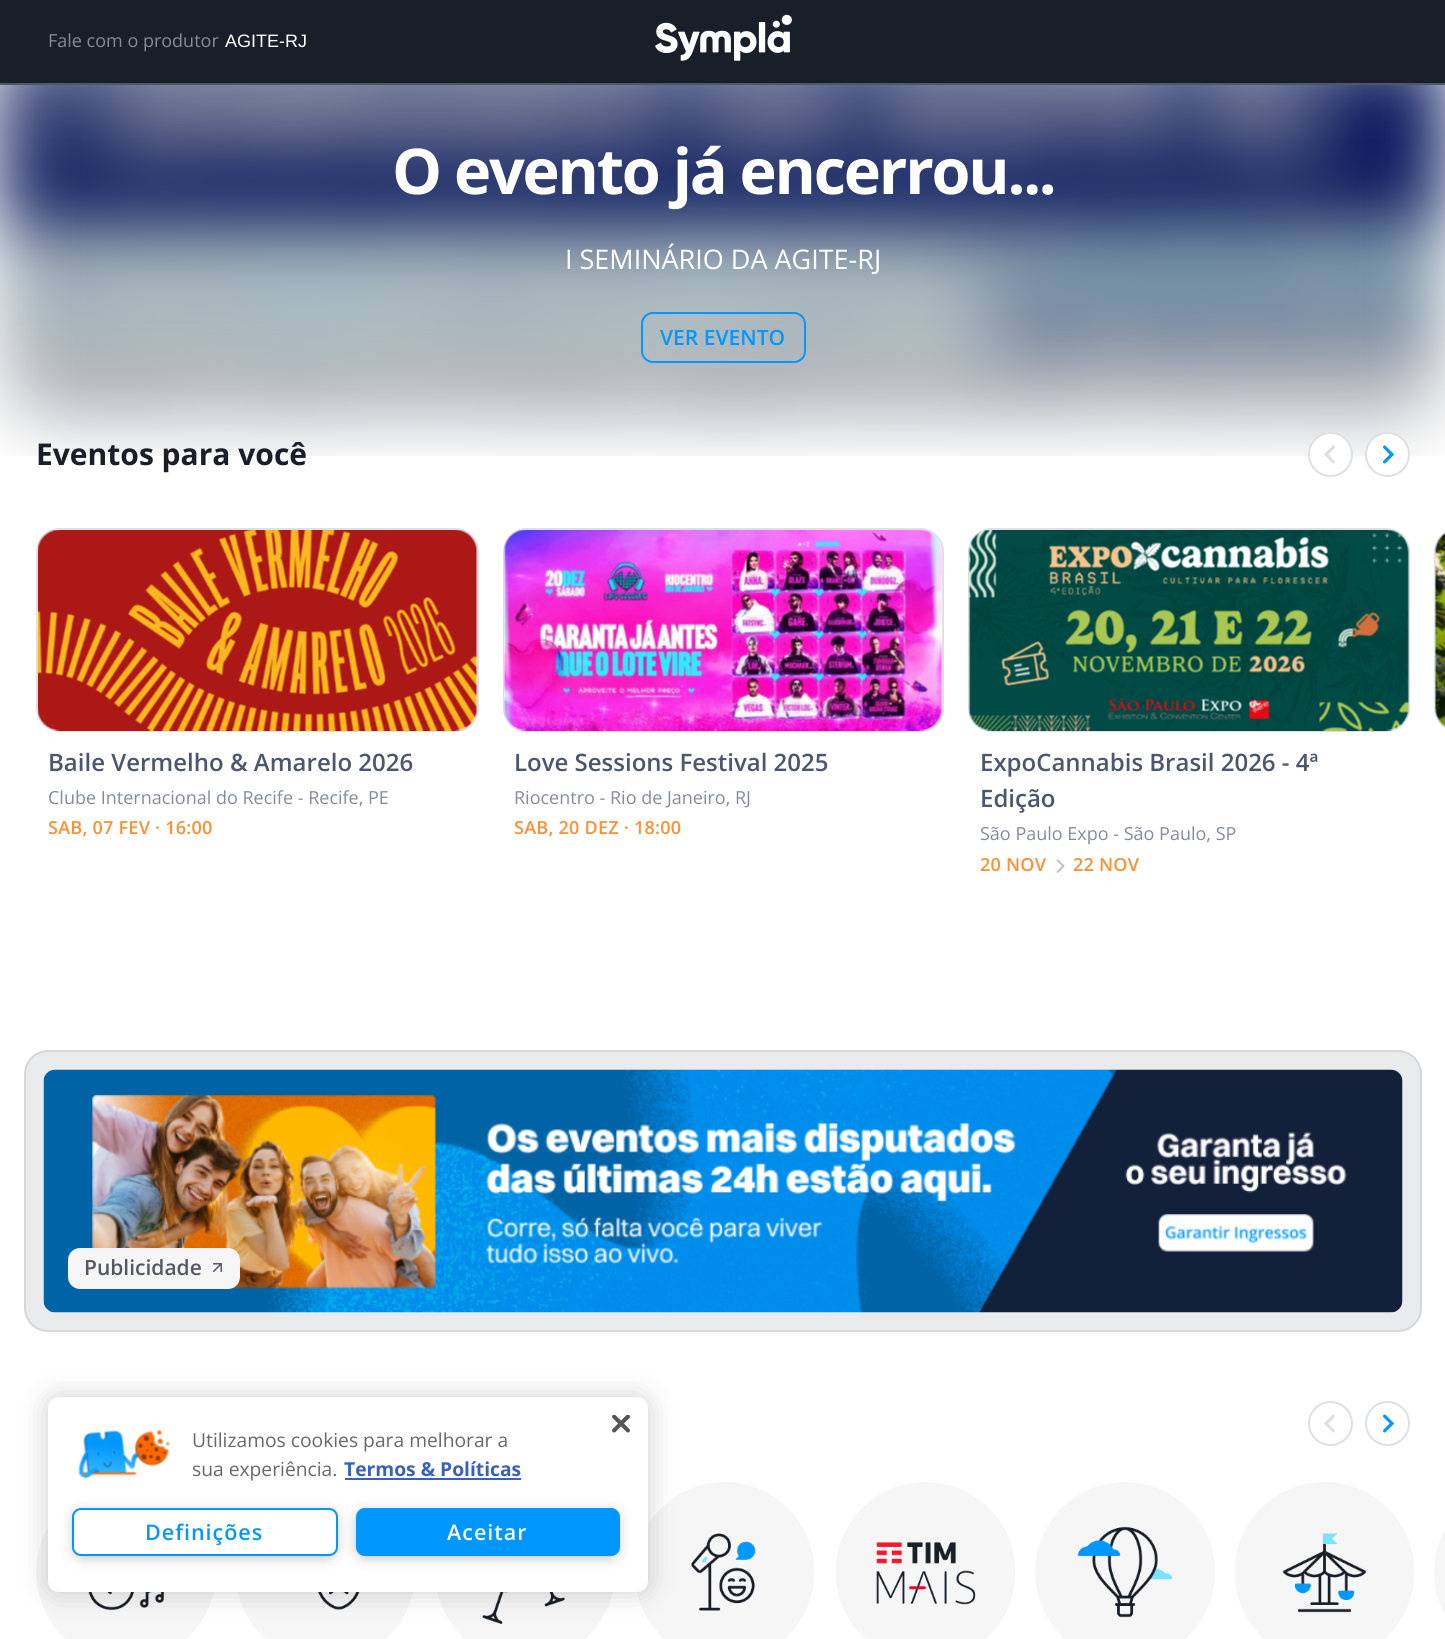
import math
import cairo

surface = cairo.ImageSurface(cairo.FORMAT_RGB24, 1445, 1639)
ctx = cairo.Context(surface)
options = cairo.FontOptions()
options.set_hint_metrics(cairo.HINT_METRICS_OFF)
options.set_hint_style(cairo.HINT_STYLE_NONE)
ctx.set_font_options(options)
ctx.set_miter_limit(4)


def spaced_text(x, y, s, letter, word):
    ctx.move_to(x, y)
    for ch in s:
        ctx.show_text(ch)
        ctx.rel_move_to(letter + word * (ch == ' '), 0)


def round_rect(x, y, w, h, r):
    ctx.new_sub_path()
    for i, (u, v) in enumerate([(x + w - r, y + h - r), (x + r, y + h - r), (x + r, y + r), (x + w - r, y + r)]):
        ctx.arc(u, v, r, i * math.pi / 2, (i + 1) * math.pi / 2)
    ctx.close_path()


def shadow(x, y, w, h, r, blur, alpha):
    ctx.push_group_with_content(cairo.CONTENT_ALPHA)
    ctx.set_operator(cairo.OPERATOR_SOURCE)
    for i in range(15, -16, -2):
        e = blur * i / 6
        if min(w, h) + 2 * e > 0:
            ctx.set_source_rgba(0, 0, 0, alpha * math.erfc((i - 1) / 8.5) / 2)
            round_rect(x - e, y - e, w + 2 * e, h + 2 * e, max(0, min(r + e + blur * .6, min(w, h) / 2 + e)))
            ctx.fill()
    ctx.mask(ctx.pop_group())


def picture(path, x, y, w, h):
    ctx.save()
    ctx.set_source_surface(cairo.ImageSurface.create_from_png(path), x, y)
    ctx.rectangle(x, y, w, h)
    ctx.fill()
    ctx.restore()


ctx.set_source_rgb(1, 1, 1)
ctx.paint()
ctx.set_source_rgb(0.098, 0.122, 0.157)
ctx.rectangle(0, 0, 1445, 83)
ctx.fill()
ctx.set_source_rgb(0.298, 0.341, 0.424)
ctx.rectangle(0, 83, 1445, 2)
ctx.fill()
ctx.select_font_face("Open Sans")
ctx.set_font_size(18)
ctx.set_source_rgb(0.518, 0.549, 0.608)
ctx.move_to(48, 47)
ctx.show_text("Fale com o produtor")
ctx.select_font_face("Liberation Sans")
ctx.set_source_rgb(1, 1, 1)
ctx.move_to(225, 47)
ctx.show_text("AGITE-RJ")
picture("img1.png", 655, 14, 137, 47)
picture("img2.png", 0, 85, 1445, 371)
ctx.select_font_face("Open Sans", cairo.FONT_SLANT_NORMAL, cairo.FONT_WEIGHT_BOLD)
ctx.set_font_size(63)
spaced_text(392, 194, "O evento já encerrou...", -2.25, 0)
ctx.select_font_face("Open Sans")
ctx.set_font_size(27)
ctx.move_to(565, 269)
ctx.show_text("I SEMINÁRIO DA AGITE-RJ")
round_rect(642, 313, 163, 49, 11)
ctx.set_source_rgb(0, 0.592, 1)
ctx.stroke()
ctx.select_font_face("Open Sans SemiBold")
ctx.set_font_size(21)
ctx.move_to(660, 345)
ctx.show_text("VER EVENTO")
ctx.select_font_face("Open Sans", cairo.FONT_SLANT_NORMAL, cairo.FONT_WEIGHT_BOLD)
ctx.set_font_size(30)
ctx.set_source_rgb(0.098, 0.122, 0.157)
ctx.move_to(36, 465)
ctx.show_text("Eventos para você")
ctx.set_source_rgb(1, 1, 1)
ctx.new_path()
ctx.arc(1330.5, 454.5, 21.5, 0, 2 * math.pi)
ctx.fill_preserve()
ctx.set_source_rgb(0.867, 0.878, 0.894)
ctx.stroke()
picture("img3.png", 1324, 445, 11, 19)
ctx.set_source_rgb(1, 1, 1)
ctx.arc(1387.5, 454.5, 21.5, 0, 2 * math.pi)
ctx.fill_preserve()
ctx.set_source_rgb(0.867, 0.878, 0.894)
ctx.stroke()
picture("img4.png", 1383, 445, 11, 19)
round_rect(1435, 529, 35, 202, 23)
ctx.stroke()
picture("img6.png", 1436, 544, 9, 182)
picture("img5.png", 1435, 533, 10, 194)
round_rect(37, 529, 441, 202, 23)
ctx.stroke()
picture("img7.png", 38, 530, 439, 201)
picture("img8.png", 38, 530, 440, 201)
ctx.select_font_face("Open Sans SemiBold")
ctx.set_font_size(24)
ctx.set_source_rgb(0.298, 0.341, 0.424)
ctx.move_to(48, 771)
ctx.show_text("Baile Vermelho & Amarelo 2026")
ctx.select_font_face("Open Sans")
ctx.set_font_size(18)
ctx.set_source_rgb(0.518, 0.549, 0.608)
ctx.move_to(48, 804)
ctx.show_text("Clube Internacional do Recife - Recife, PE")
ctx.select_font_face("Open Sans SemiBold")
ctx.set_source_rgb(1, 0.565, 0.212)
spaced_text(48, 834, "SAB, 07 FEV · 16:00", 0.25, 0)
round_rect(504, 529, 439, 202, 23)
ctx.set_source_rgb(0.867, 0.878, 0.894)
ctx.stroke()
picture("img10.png", 504, 530, 438, 201)
picture("img9.png", 503, 530, 440, 201)
ctx.set_font_size(24)
ctx.set_source_rgb(0.298, 0.341, 0.424)
ctx.move_to(514, 771)
ctx.show_text("Love Sessions Festival 2025")
ctx.select_font_face("Open Sans")
ctx.set_font_size(18)
ctx.set_source_rgb(0.518, 0.549, 0.608)
ctx.move_to(514, 804)
ctx.show_text("Riocentro - Rio de Janeiro, RJ")
ctx.select_font_face("Open Sans SemiBold")
ctx.set_source_rgb(1, 0.565, 0.212)
spaced_text(514, 834, "SAB, 20 DEZ · 18:00", 0.25, 0)
round_rect(969, 529, 440, 202, 23)
ctx.set_source_rgb(0.867, 0.878, 0.894)
ctx.stroke()
picture("img12.png", 969, 530, 439, 201)
picture("img11.png", 968, 530, 441, 201)
ctx.set_font_size(24)
ctx.set_source_rgb(0.298, 0.341, 0.424)
ctx.move_to(980, 771)
ctx.show_text("ExpoCannabis Brasil 2026 - 4ª")
ctx.move_to(980, 807)
ctx.show_text("Edição")
ctx.select_font_face("Open Sans")
ctx.set_font_size(18)
ctx.set_source_rgb(0.518, 0.549, 0.608)
ctx.move_to(980, 840)
ctx.show_text("São Paulo Expo - São Paulo, SP")
ctx.select_font_face("Open Sans SemiBold")
ctx.set_source_rgb(1, 0.565, 0.212)
spaced_text(980, 871, "20 NOV", 0.25, 0)
picture("img13.png", 1056, 859, 9, 14)
spaced_text(1073, 871, "22 NOV", 0.25, 0)
ctx.set_source_rgb(0.914, 0.918, 0.922)
round_rect(25, 1051, 1396, 280, 23)
ctx.fill_preserve()
ctx.set_source_rgb(0.835, 0.843, 0.855)
ctx.stroke()
picture("img14.png", 43, 1069, 1360, 244)
ctx.set_source_rgb(0.961, 0.961, 0.961)
round_rect(69, 1249, 170, 39, 11)
ctx.fill_preserve()
ctx.set_source_rgb(0.961, 0.953, 1)
ctx.stroke()
ctx.set_font_size(21)
ctx.set_source_rgb(0.325, 0.345, 0.384)
ctx.move_to(84, 1275)
ctx.show_text("Publicidade")
picture("img15.png", 213, 1263, 9, 9)
ctx.arc(1330.5, 1423.5, 21.5, 0, 2 * math.pi)
ctx.set_source_rgb(0.867, 0.878, 0.894)
ctx.stroke()
picture("img3.png", 1324, 1414, 11, 19)
ctx.arc(1387.5, 1423.5, 21.5, 0, 2 * math.pi)
ctx.stroke()
picture("img4.png", 1383, 1414, 11, 19)
picture("img16.png", 36, 1527, 178, 112)
picture("img17.png", 237, 1592, 177, 47)
picture("img18.png", 437, 1592, 176, 47)
picture("img19.png", 636, 1482, 178, 157)
picture("img20.png", 836, 1482, 179, 157)
picture("img21.png", 1035, 1482, 180, 157)
picture("img22.png", 1235, 1482, 179, 157)
picture("img23.png", 1434, 1530, 11, 84)
ctx.set_source_rgb(0, 0, 0)
shadow(48, 1397, 600, 195, 11, 13.5, 0.2)
ctx.set_source_rgb(1, 1, 1)
round_rect(48, 1397, 600, 195, 11)
ctx.fill()
picture("img24.png", 78, 1429, 92, 51)
picture("img25.png", 612, 1415, 18, 18)
ctx.select_font_face("Open Sans")
ctx.set_font_size(19.25)
ctx.set_source_rgb(0.412, 0.412, 0.412)
ctx.move_to(192, 1447)
ctx.show_text("Utilizamos cookies para melhorar a")
ctx.move_to(192, 1476)
ctx.show_text("sua experiência.")
ctx.select_font_face("Open Sans", cairo.FONT_SLANT_NORMAL, cairo.FONT_WEIGHT_BOLD)
ctx.set_source_rgb(0.22, 0.376, 0.745)
ctx.move_to(344, 1476)
ctx.show_text("Termos & Políticas")
ctx.rectangle(345, 1478, 176, 2)
ctx.fill()
ctx.set_source_rgb(0.6, 0.6, 0.6)
shadow(360, 1515, 255, 39, 5, 7.5, 1)
ctx.set_source_rgb(0, 0.588, 1)
round_rect(357, 1509, 262, 46, 8)
ctx.fill_preserve()
ctx.stroke()
ctx.set_source_rgb(0.6, 0.6, 0.6)
shadow(77, 1515, 256, 39, 5, 7.5, 1)
ctx.set_source_rgb(1, 1, 1)
round_rect(73, 1509, 264, 46, 8)
ctx.fill_preserve()
ctx.set_source_rgb(0, 0.588, 1)
ctx.stroke()
ctx.select_font_face("Open Sans SemiBold")
ctx.set_font_size(21.5)
ctx.set_source_rgb(0, 0.592, 1)
spaced_text(145, 1540, "Definições", 1, 0)
ctx.set_source_rgb(1, 1, 1)
spaced_text(447, 1540, "Aceitar", 1, 0)
surface.write_to_png("page.png")
